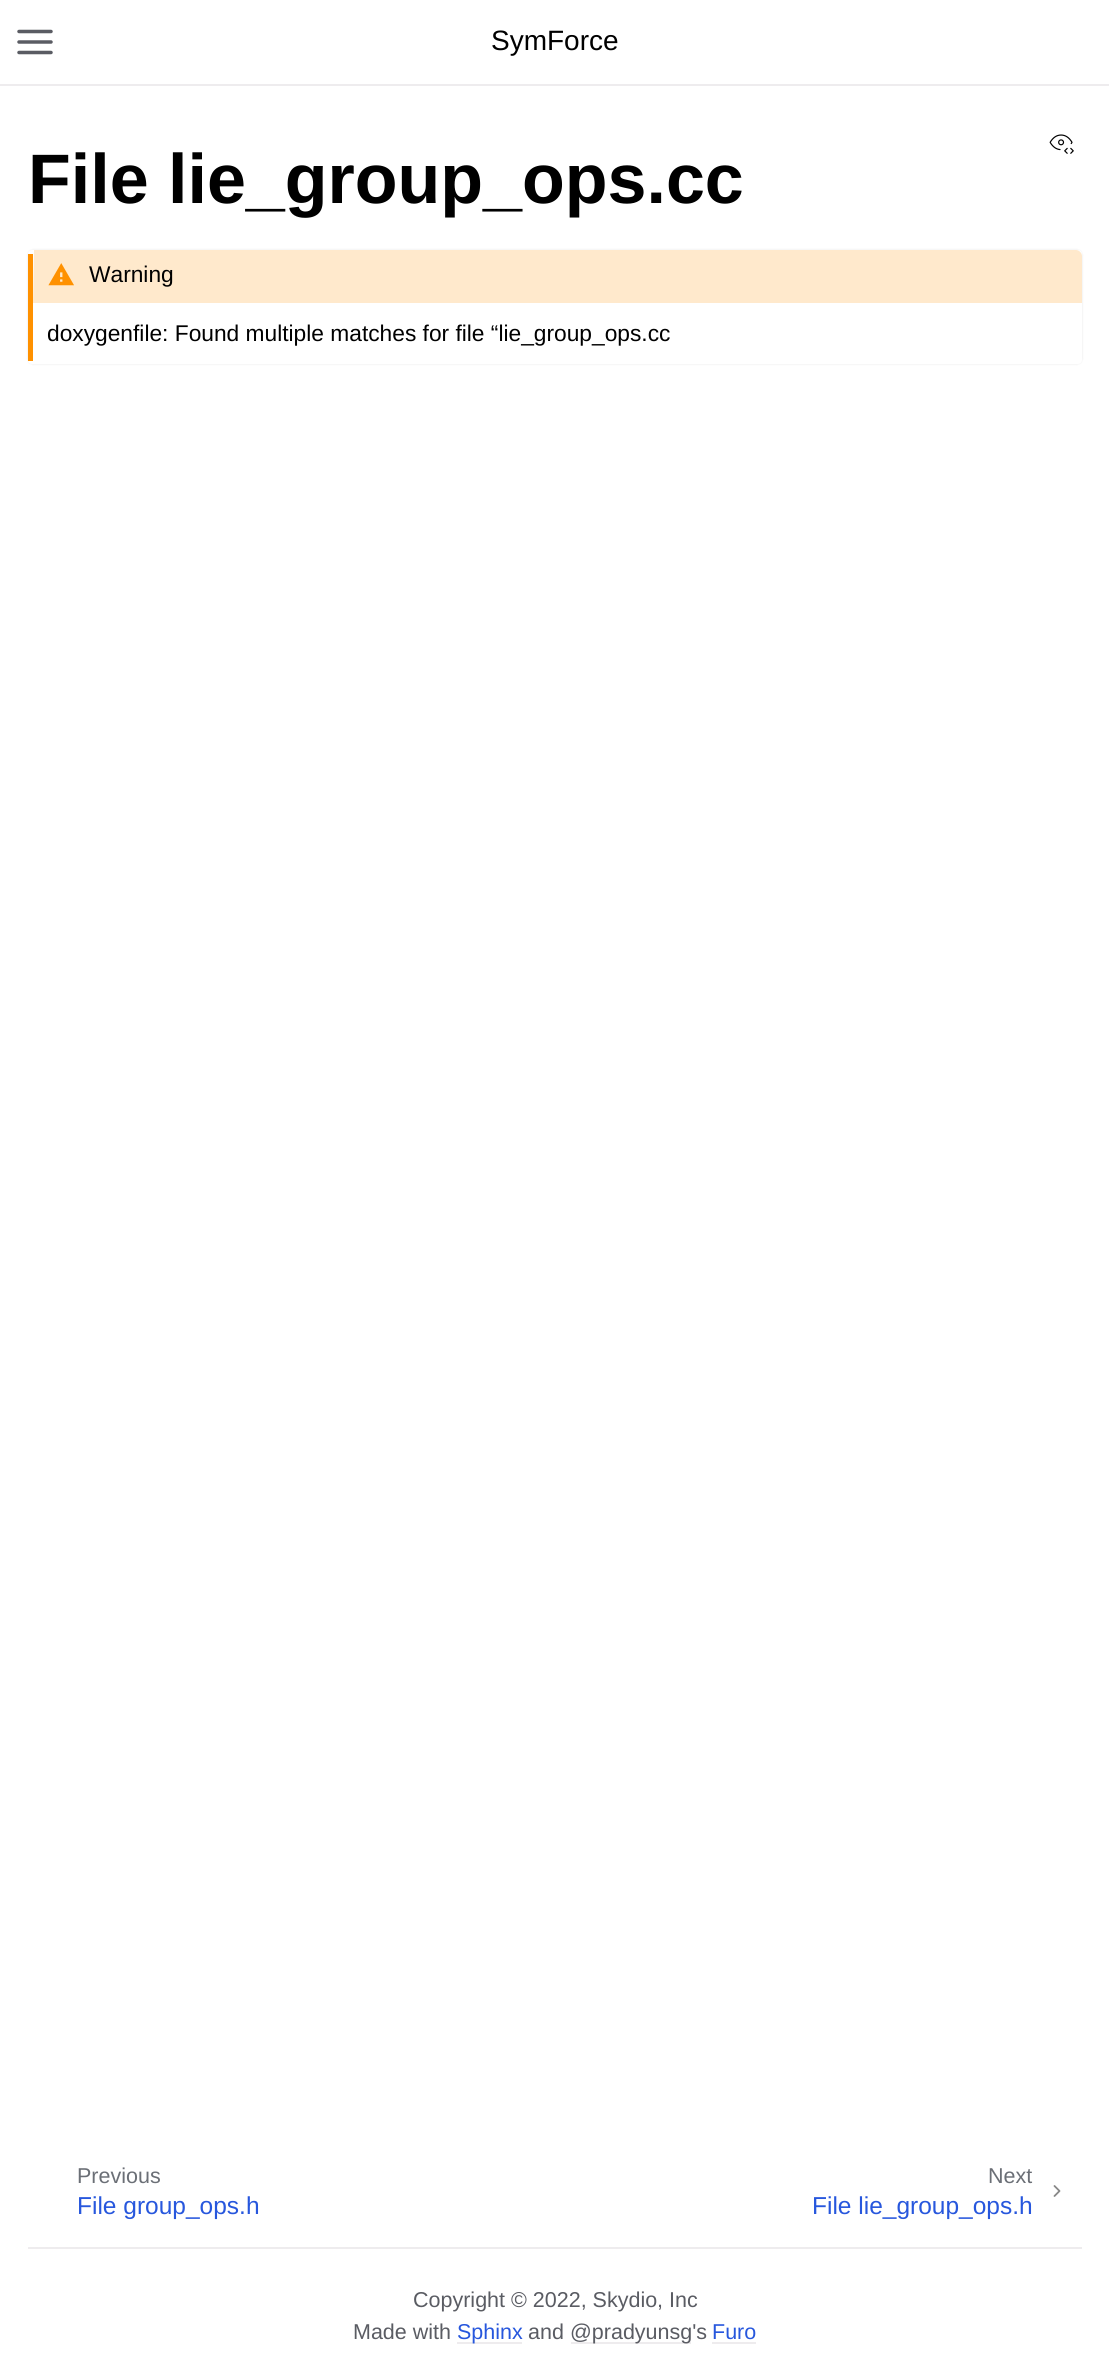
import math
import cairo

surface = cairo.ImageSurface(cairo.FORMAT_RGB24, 1109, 2375)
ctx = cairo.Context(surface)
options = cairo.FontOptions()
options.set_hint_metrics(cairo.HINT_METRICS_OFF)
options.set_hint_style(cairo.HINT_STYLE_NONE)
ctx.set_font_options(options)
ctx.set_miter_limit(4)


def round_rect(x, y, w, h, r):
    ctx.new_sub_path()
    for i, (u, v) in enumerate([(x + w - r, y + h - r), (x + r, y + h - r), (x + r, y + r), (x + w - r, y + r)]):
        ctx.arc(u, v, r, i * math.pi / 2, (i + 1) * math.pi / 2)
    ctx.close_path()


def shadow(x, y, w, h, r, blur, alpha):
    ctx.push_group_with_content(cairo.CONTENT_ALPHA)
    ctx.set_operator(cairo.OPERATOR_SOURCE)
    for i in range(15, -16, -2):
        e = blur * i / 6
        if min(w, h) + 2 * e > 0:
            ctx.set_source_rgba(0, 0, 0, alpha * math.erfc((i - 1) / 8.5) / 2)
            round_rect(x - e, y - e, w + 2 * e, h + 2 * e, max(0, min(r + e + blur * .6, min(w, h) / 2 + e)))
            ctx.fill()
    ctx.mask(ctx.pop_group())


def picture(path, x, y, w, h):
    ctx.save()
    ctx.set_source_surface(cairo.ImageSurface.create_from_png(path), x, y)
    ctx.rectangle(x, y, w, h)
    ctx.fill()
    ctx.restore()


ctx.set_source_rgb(1, 1, 1)
ctx.paint()
ctx.set_source_rgb(0.933, 0.922, 0.933)
ctx.rectangle(0, 84, 1109, 2)
ctx.fill()
ctx.new_path()
ctx.move_to(19, 42)
ctx.line_to(51, 42)
ctx.move_to(19, 31.5)
ctx.line_to(51, 31.5)
ctx.move_to(19, 52.5)
ctx.line_to(51, 52.5)
ctx.set_source_rgb(0.353, 0.361, 0.388)
ctx.set_line_width(3.5)
ctx.set_line_cap(cairo.LINE_CAP_ROUND)
ctx.set_line_join(cairo.LINE_JOIN_ROUND)
ctx.stroke()
ctx.select_font_face("Liberation Sans")
ctx.set_font_size(28)
ctx.set_source_rgb(0, 0, 0)
ctx.move_to(491, 50)
ctx.show_text("SymForce")
picture("img1.png", 1049, 134, 25, 20)
ctx.select_font_face("Liberation Sans", cairo.FONT_SLANT_NORMAL, cairo.FONT_WEIGHT_BOLD)
ctx.set_font_size(70)
ctx.move_to(28, 203)
ctx.show_text("File lie_group_ops.cc")
ctx.save()
ctx.set_fill_rule(cairo.FILL_RULE_EVEN_ODD)
ctx.new_path()
ctx.move_to(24, 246)
ctx.line_to(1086, 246)
ctx.line_to(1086, 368)
ctx.line_to(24, 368)
ctx.close_path()
ctx.move_to(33, 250)
ctx.line_to(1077, 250)
ctx.curve_to(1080, 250, 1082, 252, 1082, 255)
ctx.line_to(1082, 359)
ctx.curve_to(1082, 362, 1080, 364, 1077, 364)
ctx.line_to(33, 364)
ctx.curve_to(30, 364, 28, 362, 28, 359)
ctx.line_to(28, 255)
ctx.curve_to(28, 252, 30, 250, 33, 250)
ctx.close_path()
ctx.clip()
ctx.set_source_rgb(0, 0, 0)
shadow(28, 250, 1054, 114, 5, 1, 0.1)
ctx.restore()
ctx.set_source_rgb(1, 0.569, 0)
ctx.rectangle(28, 254, 5, 107)
ctx.fill()
ctx.set_source_rgba(1, 0.569, 0, 0.2)
ctx.new_path()
ctx.move_to(34, 250)
ctx.line_to(1076, 250)
ctx.curve_to(1079, 250, 1082, 253, 1082, 256)
ctx.line_to(1082, 303)
ctx.line_to(33, 303)
ctx.close_path()
ctx.fill()
picture("img2.png", 48, 263, 26, 23)
ctx.select_font_face("Liberation Sans")
ctx.set_font_size(22.75)
ctx.set_source_rgb(0, 0, 0)
ctx.move_to(89, 282)
ctx.show_text("Warning")
ctx.move_to(47, 341)
ctx.show_text("doxygenfile: Found multiple matches for file “lie_group_ops.cc")
ctx.set_font_size(21.5)
ctx.set_source_rgb(0.42, 0.435, 0.463)
ctx.move_to(77, 2183)
ctx.show_text("Previous")
ctx.set_font_size(24.5)
ctx.set_source_rgb(0.153, 0.341, 0.867)
ctx.move_to(77, 2214)
ctx.show_text("File group_ops.h")
ctx.set_font_size(21.5)
ctx.set_source_rgb(0.42, 0.435, 0.463)
ctx.move_to(988, 2183)
ctx.show_text("Next")
ctx.set_font_size(24.5)
ctx.set_source_rgb(0.153, 0.341, 0.867)
ctx.move_to(812, 2214)
ctx.show_text("File lie_group_ops.h")
ctx.new_path()
ctx.move_to(1054.5, 2196)
ctx.line_to(1059.5, 2191)
ctx.line_to(1054.5, 2186)
ctx.set_source_rgb(0.529, 0.529, 0.529)
ctx.set_line_width(1.8)
ctx.stroke()
ctx.set_source_rgb(0.933, 0.922, 0.933)
ctx.rectangle(28, 2247, 1054, 2)
ctx.fill()
ctx.set_font_size(21.5)
ctx.set_source_rgb(0.353, 0.361, 0.388)
ctx.move_to(413, 2307)
ctx.show_text("Copyright © 2022, Skydio, Inc")
ctx.move_to(353, 2339)
ctx.show_text("Made with")
ctx.set_source_rgb(0.933, 0.922, 0.933)
ctx.rectangle(457, 2342, 65, 2)
ctx.fill()
ctx.set_source_rgb(0.153, 0.341, 0.867)
ctx.move_to(457, 2339)
ctx.show_text("Sphinx")
ctx.set_source_rgb(0.353, 0.361, 0.388)
ctx.move_to(528, 2339)
ctx.show_text("and")
ctx.set_source_rgb(0.933, 0.922, 0.933)
ctx.rectangle(571, 2342, 120, 2)
ctx.fill()
ctx.set_source_rgb(0.353, 0.361, 0.388)
ctx.move_to(570, 2339)
ctx.show_text("@pradyunsg's")
ctx.set_source_rgb(0.153, 0.341, 0.867)
ctx.move_to(712, 2339)
ctx.show_text("Furo")
ctx.set_source_rgb(0.933, 0.922, 0.933)
ctx.rectangle(712, 2342, 44, 2)
ctx.fill()
surface.write_to_png("page.png")
